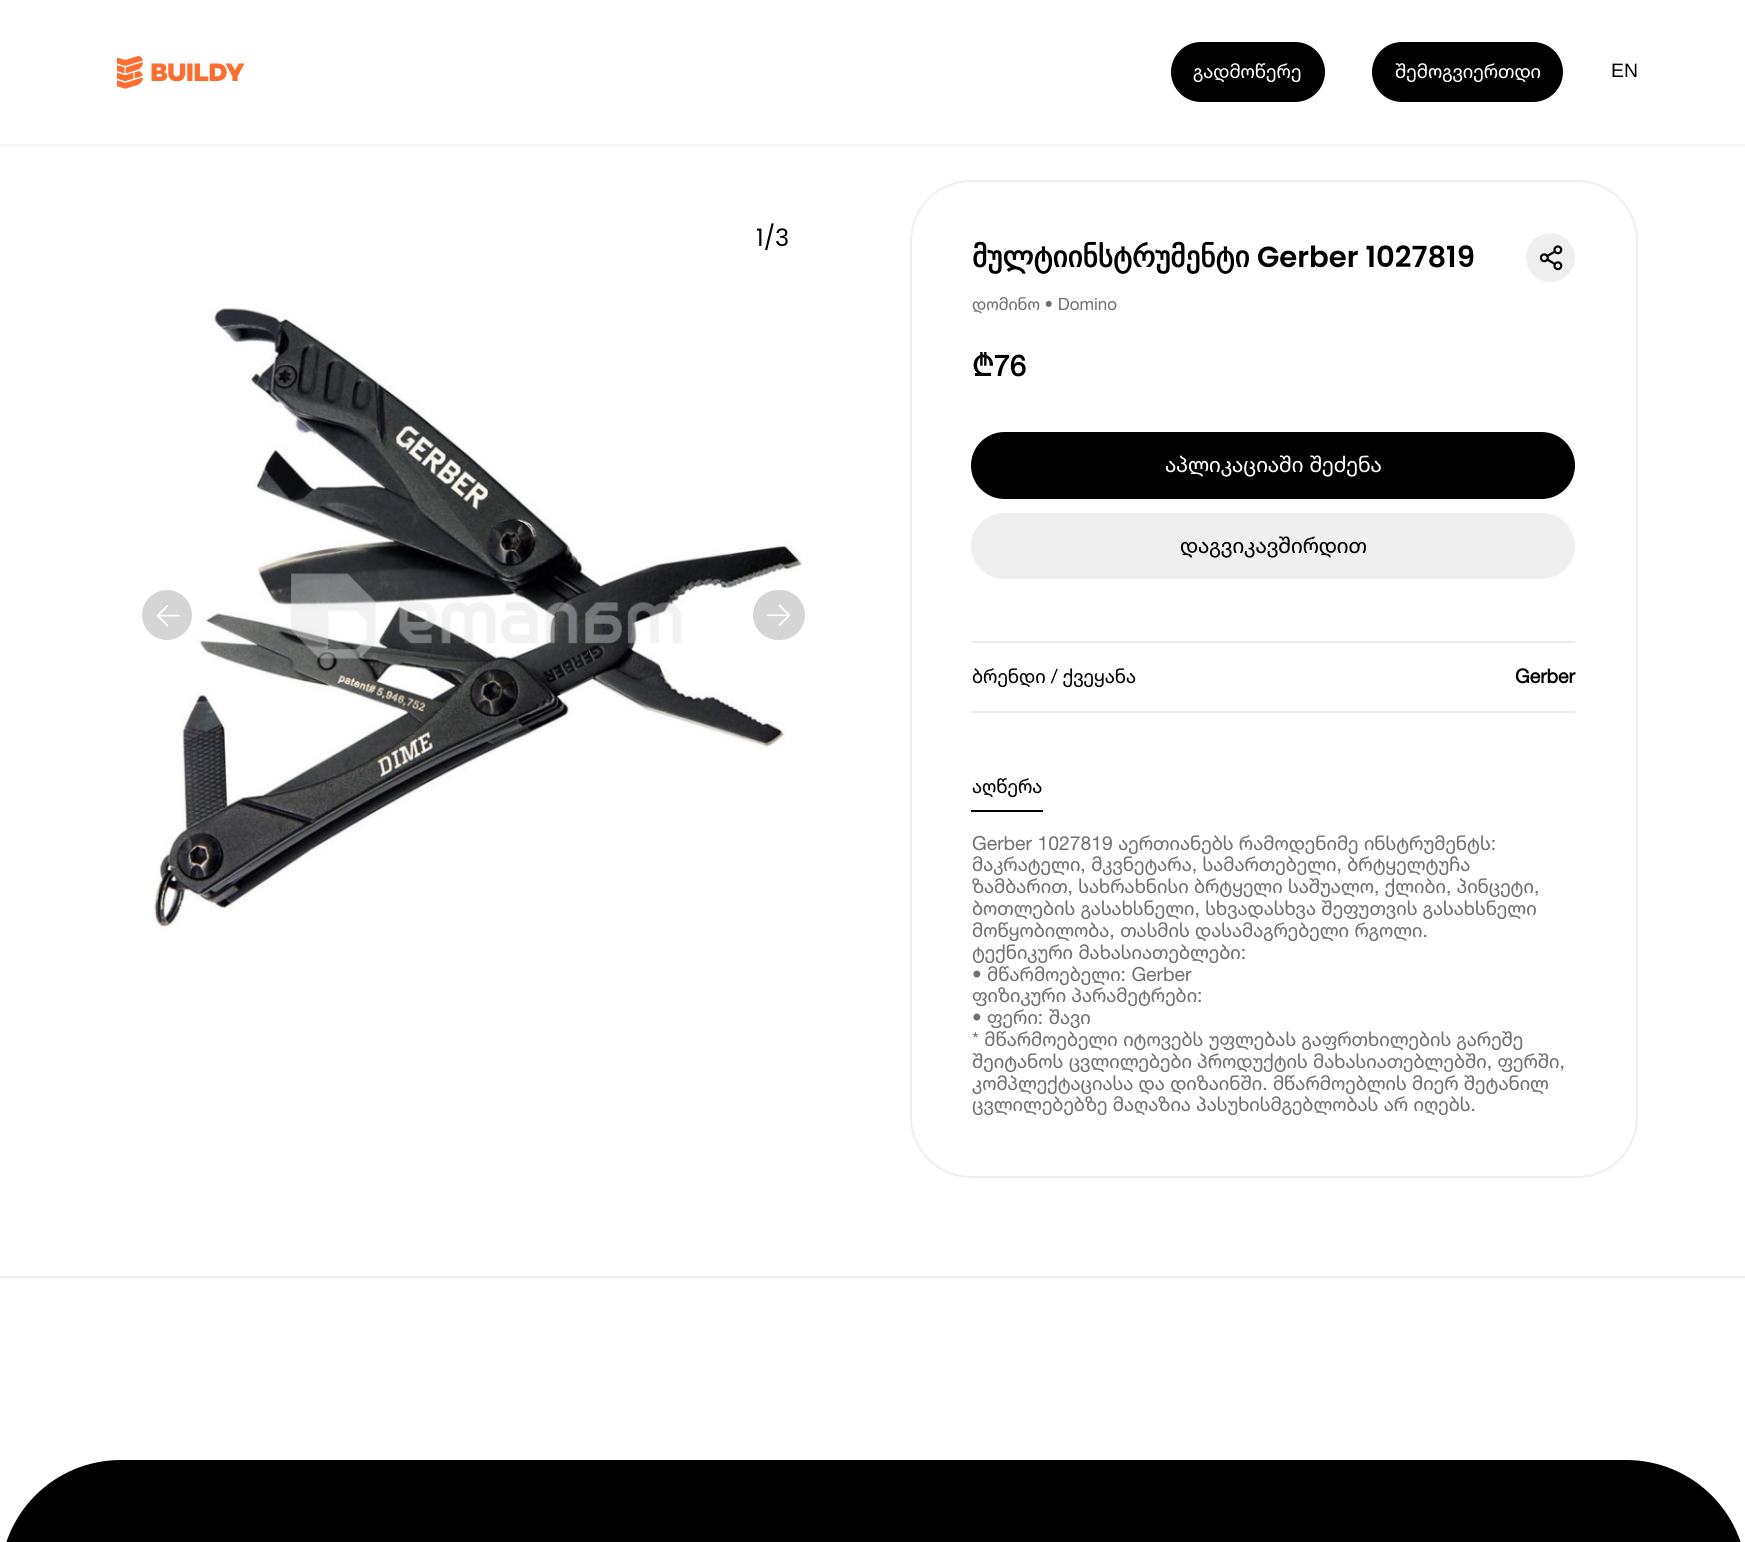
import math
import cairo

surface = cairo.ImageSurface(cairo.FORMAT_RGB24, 1745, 1542)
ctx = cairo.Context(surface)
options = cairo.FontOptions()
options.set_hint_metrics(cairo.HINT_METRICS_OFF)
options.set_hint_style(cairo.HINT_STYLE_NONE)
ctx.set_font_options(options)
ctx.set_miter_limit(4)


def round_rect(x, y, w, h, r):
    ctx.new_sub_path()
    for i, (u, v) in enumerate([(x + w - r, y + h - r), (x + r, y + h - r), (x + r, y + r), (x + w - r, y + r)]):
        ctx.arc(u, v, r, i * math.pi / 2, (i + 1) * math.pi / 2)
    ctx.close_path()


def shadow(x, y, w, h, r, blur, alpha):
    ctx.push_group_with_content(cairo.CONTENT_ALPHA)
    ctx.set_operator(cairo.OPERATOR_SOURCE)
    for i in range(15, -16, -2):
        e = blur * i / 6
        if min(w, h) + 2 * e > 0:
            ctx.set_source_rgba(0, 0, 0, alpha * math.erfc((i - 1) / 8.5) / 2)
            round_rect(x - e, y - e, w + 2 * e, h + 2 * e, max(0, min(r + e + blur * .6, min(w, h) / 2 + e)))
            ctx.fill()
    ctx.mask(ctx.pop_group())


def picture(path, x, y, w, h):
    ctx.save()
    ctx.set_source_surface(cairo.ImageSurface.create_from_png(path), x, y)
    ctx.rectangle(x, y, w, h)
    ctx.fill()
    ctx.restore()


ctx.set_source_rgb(1, 1, 1)
ctx.paint()
ctx.set_source_rgb(0.729, 0.729, 0.729)
shadow(0, 2, 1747, 143, 0, 2.5, 0.25)
ctx.set_source_rgb(1, 1, 1)
ctx.rectangle(0, 0, 1745, 144)
ctx.fill()
picture("img1.png", 117, 56, 128, 33)
ctx.set_source_rgb(0, 0, 0)
round_rect(1171, 42, 154, 60, 30)
ctx.fill()
ctx.select_font_face("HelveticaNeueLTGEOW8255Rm")
ctx.set_font_size(19.4)
ctx.set_source_rgb(1, 1, 1)
ctx.move_to(1193, 78)
ctx.show_text("გადმოწერე")
ctx.set_source_rgb(0, 0, 0)
round_rect(1372, 42, 191, 60, 30)
ctx.fill()
ctx.set_source_rgb(1, 1, 1)
ctx.move_to(1395, 78)
ctx.show_text("შემოგვიერთდი")
ctx.select_font_face("Liberation Sans")
ctx.set_source_rgb(0, 0, 0)
ctx.move_to(1611, 77)
ctx.show_text("EN")
ctx.set_source_rgb(0.937, 0.937, 0.937)
ctx.rectangle(0, 1276, 1745, 2)
ctx.fill()
ctx.select_font_face("Poppins")
ctx.set_font_size(24)
ctx.set_source_rgb(0, 0, 0)
ctx.move_to(756, 246)
ctx.show_text("1/3")
picture("img2.png", 153, 307, 650, 623)
ctx.set_source_rgb(0.835, 0.835, 0.835)
ctx.arc(167, 615, 27, 0, 2 * math.pi)
ctx.fill_preserve()
ctx.set_source_rgb(1, 1, 1)
ctx.set_line_width(4)
ctx.stroke()
picture("img3.png", 156, 605, 24, 22)
ctx.set_source_rgb(0.835, 0.835, 0.835)
round_rect(751, 588, 56, 54, 27)
ctx.fill_preserve()
ctx.set_source_rgb(1, 1, 1)
ctx.stroke()
picture("img4.png", 767, 604, 23, 22)
round_rect(911, 181, 726, 996, 60)
ctx.set_source_rgb(0.937, 0.937, 0.937)
ctx.set_line_width(2)
ctx.stroke()
ctx.select_font_face("DejaVu Sans", cairo.FONT_SLANT_NORMAL, cairo.FONT_WEIGHT_BOLD)
ctx.set_font_size(29.1)
ctx.set_source_rgb(0, 0, 0)
ctx.move_to(972, 267)
ctx.show_text("მულტიინსტრუმენტი")
ctx.select_font_face("Poppins SemiBold")
ctx.move_to(1257, 267)
ctx.show_text("Gerber 1027819")
ctx.set_source_rgb(0.937, 0.937, 0.937)
ctx.new_path()
ctx.arc(1550.5, 257.5, 24.5, 0, 2 * math.pi)
ctx.fill()
picture("img5.png", 1539, 245, 24, 26)
ctx.select_font_face("HelveticaNeueLTGEOW8255Rm")
ctx.set_font_size(17)
ctx.set_source_rgb(0.439, 0.439, 0.439)
ctx.move_to(972, 310)
ctx.show_text("დომინო • Domino")
ctx.select_font_face("HelveticaNeueLTGEOW8255Rm", cairo.FONT_SLANT_NORMAL, cairo.FONT_WEIGHT_BOLD)
ctx.set_font_size(29.1)
ctx.set_source_rgb(0, 0, 0)
ctx.move_to(972, 376)
ctx.show_text("₾76")
round_rect(971, 432, 604, 67, 33.5)
ctx.fill()
ctx.select_font_face("HelveticaNeueLTGEOW8255Rm")
ctx.set_font_size(21.75)
ctx.set_source_rgb(1, 1, 1)
ctx.move_to(1165, 472)
ctx.show_text("აპლიკაციაში შეძენა")
ctx.set_source_rgb(0.937, 0.937, 0.937)
round_rect(971, 513, 604, 66, 33)
ctx.fill()
ctx.set_source_rgb(0, 0, 0)
ctx.move_to(1180, 553)
ctx.show_text("დაგვიკავშირდით")
ctx.set_source_rgb(0.925, 0.925, 0.925)
ctx.rectangle(971, 641, 604, 2)
ctx.fill()
ctx.rectangle(971, 711, 604, 2)
ctx.fill()
ctx.set_font_size(19.4)
ctx.set_source_rgb(0, 0, 0)
ctx.move_to(972, 683)
ctx.show_text("ბრენდი / ქვეყანა")
ctx.select_font_face("HelveticaNeueLTGEOW8255Rm", cairo.FONT_SLANT_NORMAL, cairo.FONT_WEIGHT_BOLD)
ctx.move_to(1515, 683)
ctx.show_text("Gerber")
ctx.rectangle(971, 810, 72, 2)
ctx.fill()
ctx.select_font_face("HelveticaNeueLTGEOW8255Rm")
ctx.move_to(972, 793)
ctx.show_text("აღწერა")
ctx.set_source_rgb(0.439, 0.439, 0.439)
ctx.move_to(972, 850)
ctx.show_text("Gerber 1027819 აერთიანებს რამოდენიმე ინსტრუმენტს:")
ctx.move_to(972, 871)
ctx.show_text("მაკრატელი, მკვნეტარა, სამართებელი, ბრტყელტუჩა")
ctx.move_to(972, 893)
ctx.show_text("ზამბარით, სახრახნისი ბრტყელი საშუალო, ქლიბი, პინცეტი,")
ctx.move_to(972, 915)
ctx.show_text("ბოთლების გასახსნელი, სხვადასხვა შეფუთვის გასახსნელი")
ctx.move_to(972, 937)
ctx.show_text("მოწყობილობა, თასმის დასამაგრებელი რგოლი.")
ctx.move_to(972, 959)
ctx.show_text("ტექნიკური მახასიათებლები:")
ctx.move_to(972, 981)
ctx.show_text("• მწარმოებელი: Gerber")
ctx.move_to(972, 1002)
ctx.show_text("ფიზიკური პარამეტრები:")
ctx.move_to(972, 1024)
ctx.show_text("• ფერი: შავი")
ctx.move_to(972, 1046)
ctx.show_text("* მწარმოებელი იტოვებს უფლებას გაფრთხილების გარეშე")
ctx.move_to(972, 1068)
ctx.show_text("შეიტანოს ცვლილებები პროდუქტის მახასიათებლებში, ფერში,")
ctx.move_to(972, 1090)
ctx.show_text("კომპლექტაციასა და დიზაინში. მწარმოებლის მიერ შეტანილ")
ctx.move_to(972, 1111)
ctx.show_text("ცვლილებებზე მაღაზია პასუხისმგებლობას არ იღებს.")
ctx.set_source_rgb(0, 0, 0)
ctx.new_path()
ctx.move_to(121, 1460)
ctx.line_to(1626, 1460)
ctx.curve_to(1693, 1460, 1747, 1514, 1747, 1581)
ctx.line_to(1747, 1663)
ctx.line_to(0, 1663)
ctx.line_to(0, 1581)
ctx.curve_to(0, 1514, 54, 1460, 121, 1460)
ctx.close_path()
ctx.fill()
surface.write_to_png("page.png")
